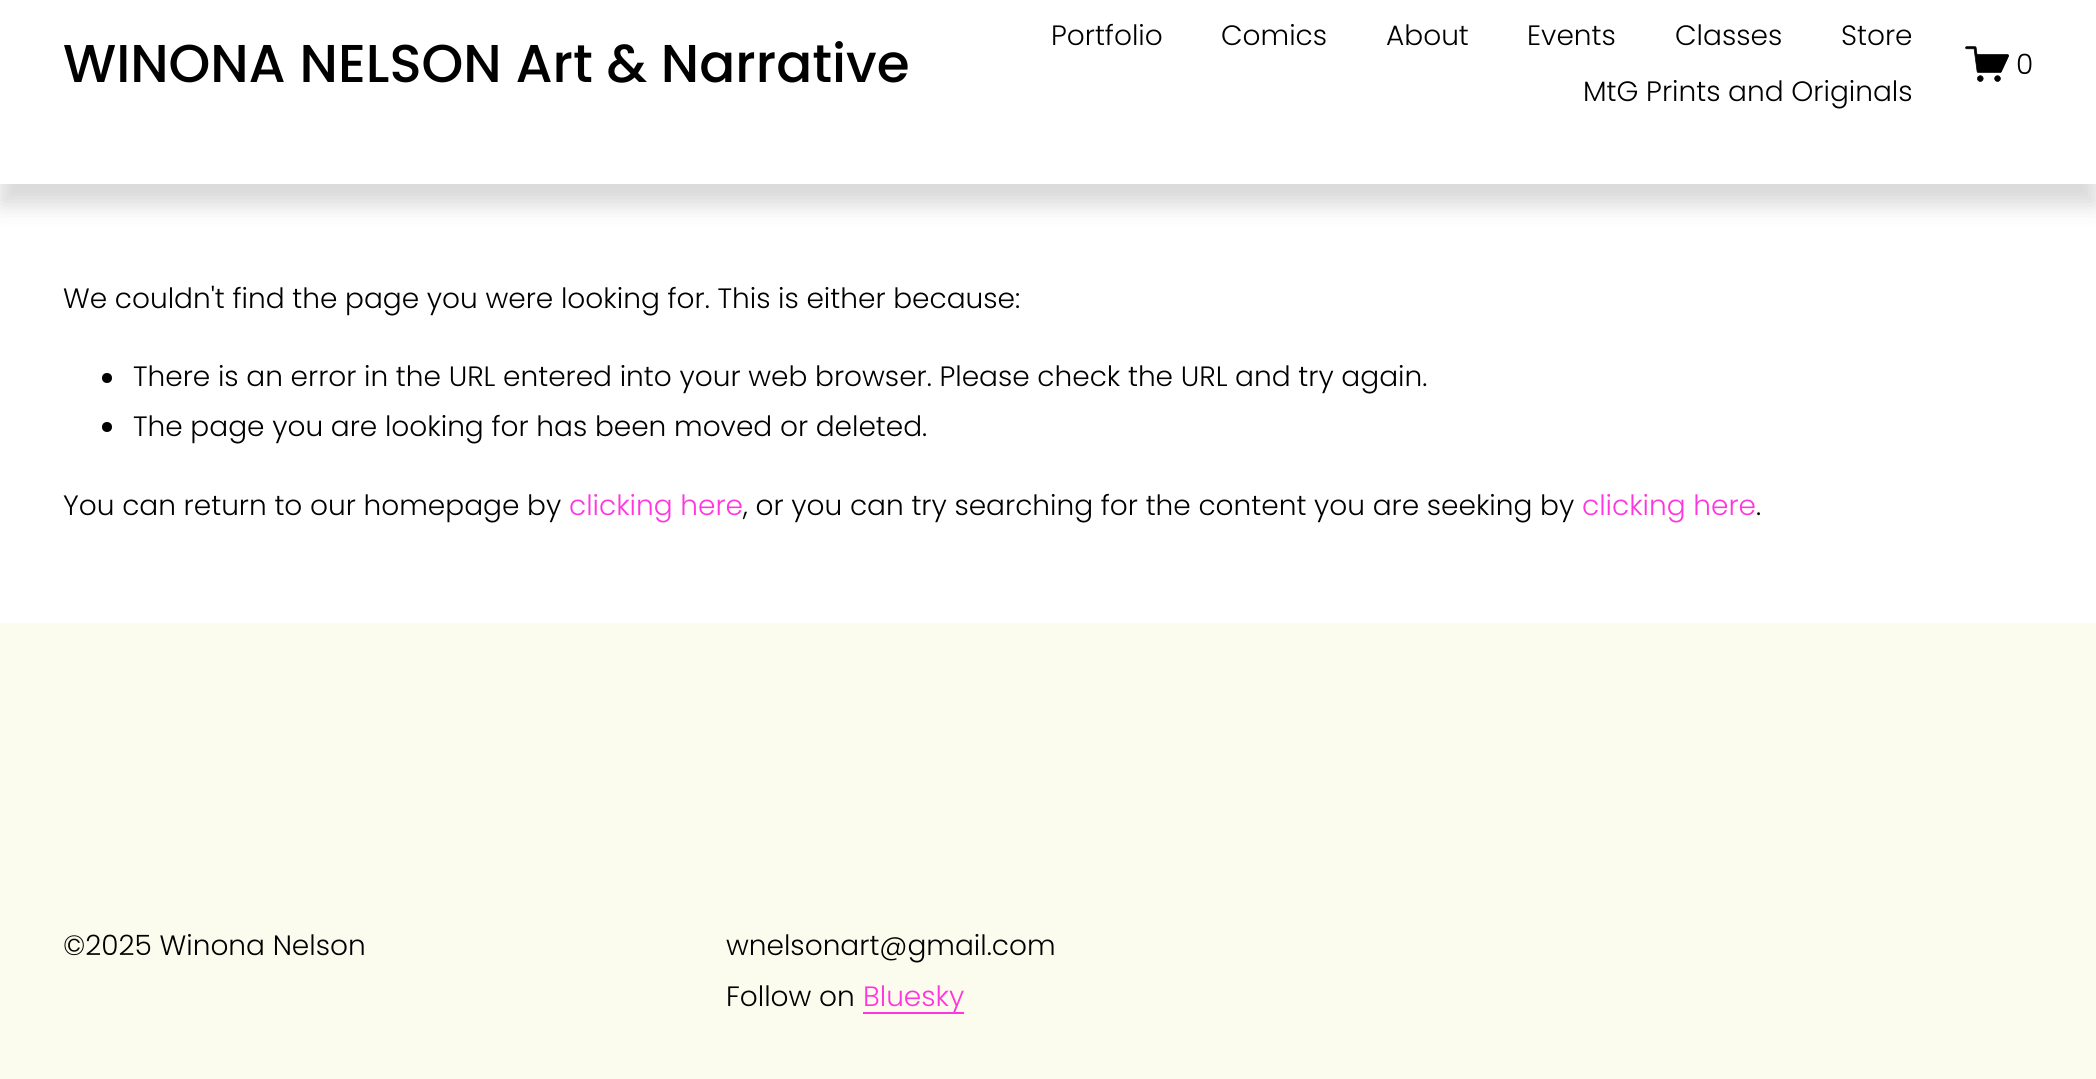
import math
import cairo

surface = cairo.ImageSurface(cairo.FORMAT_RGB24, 2096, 1079)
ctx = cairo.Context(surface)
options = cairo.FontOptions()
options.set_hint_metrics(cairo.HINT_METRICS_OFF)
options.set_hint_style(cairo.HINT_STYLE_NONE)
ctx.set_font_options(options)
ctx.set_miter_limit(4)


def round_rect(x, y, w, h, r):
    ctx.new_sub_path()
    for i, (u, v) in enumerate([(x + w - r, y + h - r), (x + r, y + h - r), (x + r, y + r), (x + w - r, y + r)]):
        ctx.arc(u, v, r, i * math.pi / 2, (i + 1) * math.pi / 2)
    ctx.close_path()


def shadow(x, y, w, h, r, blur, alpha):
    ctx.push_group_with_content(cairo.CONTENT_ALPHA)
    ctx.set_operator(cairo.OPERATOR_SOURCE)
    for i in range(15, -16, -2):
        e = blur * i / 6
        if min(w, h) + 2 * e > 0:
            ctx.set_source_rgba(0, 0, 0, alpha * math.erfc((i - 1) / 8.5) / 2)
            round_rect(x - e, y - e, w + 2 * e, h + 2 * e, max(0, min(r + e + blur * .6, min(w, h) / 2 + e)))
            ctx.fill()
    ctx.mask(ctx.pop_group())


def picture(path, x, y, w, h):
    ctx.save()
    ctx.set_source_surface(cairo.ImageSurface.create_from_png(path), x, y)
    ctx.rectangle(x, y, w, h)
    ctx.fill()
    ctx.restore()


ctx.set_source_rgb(1, 1, 1)
ctx.paint()
ctx.save()
ctx.set_fill_rule(cairo.FILL_RULE_EVEN_ODD)
ctx.new_path()
ctx.move_to(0, 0)
ctx.line_to(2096, 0)
ctx.line_to(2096, 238)
ctx.line_to(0, 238)
ctx.close_path()
ctx.move_to(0, -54)
ctx.line_to(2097, -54)
ctx.line_to(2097, 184)
ctx.line_to(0, 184)
ctx.close_path()
ctx.clip()
ctx.set_source_rgb(0.851, 0.851, 0.851)
shadow(0, -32, 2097, 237, 0, 10.5, 1)
ctx.restore()
ctx.select_font_face("Poppins Medium")
ctx.set_font_size(53.2)
ctx.set_source_rgb(0, 0, 0)
ctx.move_to(63, 82)
ctx.show_text("WINONA NELSON Art & Narrative")
ctx.select_font_face("Poppins Light")
ctx.set_font_size(28)
ctx.move_to(1051, 45)
ctx.show_text("Portfolio")
ctx.move_to(1221, 45)
ctx.show_text("Comics")
ctx.move_to(1386, 45)
ctx.show_text("About")
ctx.move_to(1527, 45)
ctx.show_text("Events")
ctx.move_to(1675, 45)
ctx.show_text("Classes")
ctx.move_to(1841, 45)
ctx.show_text("Store")
ctx.move_to(1583, 101)
ctx.show_text("MtG Prints and Originals")
picture("img1.png", 1965, 46, 44, 36)
ctx.move_to(2016, 74)
ctx.show_text("0")
ctx.move_to(63, 308)
ctx.show_text("We couldn't find the page you were looking for. This is either because:")
ctx.new_path()
ctx.arc(107, 378, 5, 0, 2 * math.pi)
ctx.fill()
ctx.move_to(133, 386)
ctx.show_text("There is an error in the URL entered into your web browser. Please check the URL and try again.")
ctx.new_path()
ctx.arc(107, 427, 5, 0, 2 * math.pi)
ctx.fill()
ctx.move_to(133, 436)
ctx.show_text("The page you are looking for has been moved or deleted.")
ctx.move_to(63, 515)
ctx.show_text("You can return to our homepage by")
ctx.set_source_rgb(1, 0.208, 0.871)
ctx.move_to(569, 515)
ctx.show_text("clicking here")
ctx.set_source_rgb(0, 0, 0)
ctx.move_to(743, 515)
ctx.show_text(", or you can try searching for the content you are seeking by")
ctx.set_source_rgb(1, 0.208, 0.871)
ctx.move_to(1582, 515)
ctx.show_text("clicking here")
ctx.set_source_rgb(0, 0, 0)
ctx.move_to(1756, 515)
ctx.show_text(".")
ctx.set_source_rgb(0.984, 0.988, 0.933)
ctx.rectangle(0, 623, 2096, 456)
ctx.fill()
ctx.set_source_rgb(0, 0, 0)
ctx.move_to(63, 955)
ctx.show_text("©2025 Winona Nelson")
ctx.move_to(726, 955)
ctx.show_text("wnelsonart@gmail.com")
ctx.move_to(726, 1006)
ctx.show_text("Follow on")
ctx.set_source_rgb(1, 0.208, 0.871)
ctx.rectangle(863, 1012, 101, 2)
ctx.fill()
ctx.move_to(863, 1006)
ctx.show_text("Bluesky")
surface.write_to_png("page.png")
